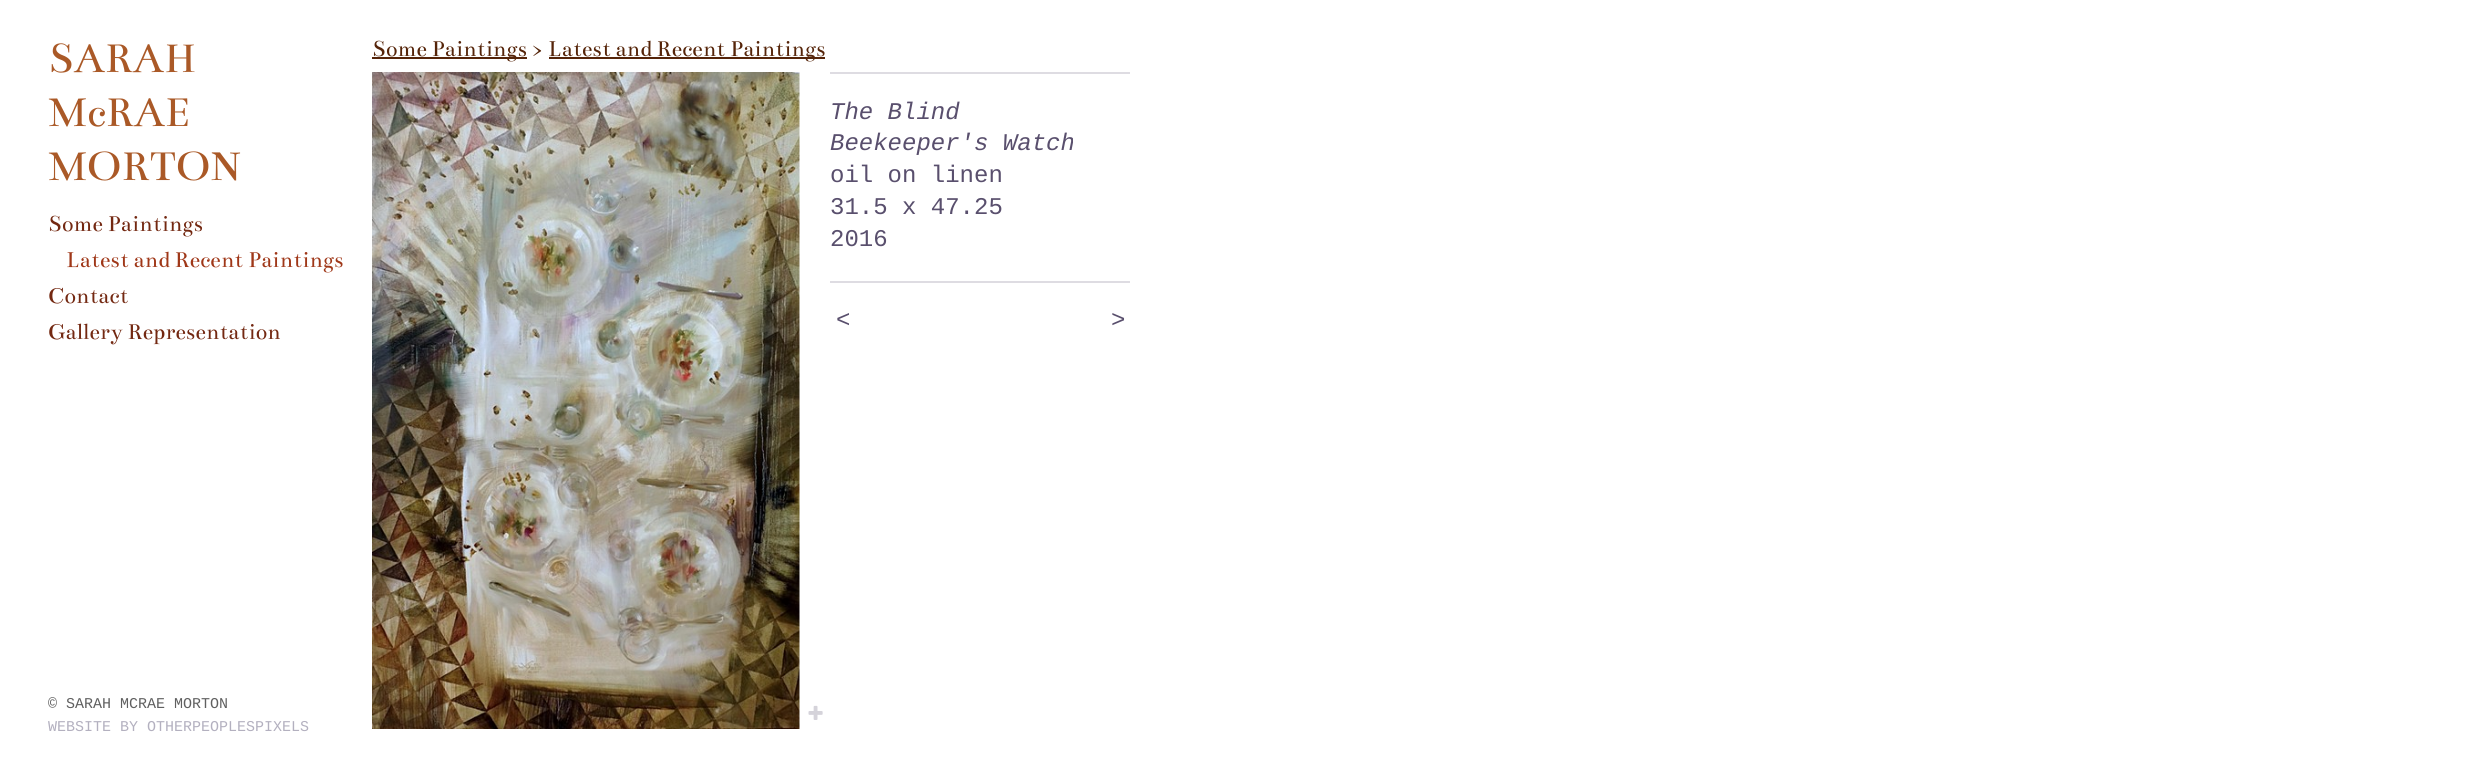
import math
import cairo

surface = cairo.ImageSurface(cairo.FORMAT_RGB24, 2467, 772)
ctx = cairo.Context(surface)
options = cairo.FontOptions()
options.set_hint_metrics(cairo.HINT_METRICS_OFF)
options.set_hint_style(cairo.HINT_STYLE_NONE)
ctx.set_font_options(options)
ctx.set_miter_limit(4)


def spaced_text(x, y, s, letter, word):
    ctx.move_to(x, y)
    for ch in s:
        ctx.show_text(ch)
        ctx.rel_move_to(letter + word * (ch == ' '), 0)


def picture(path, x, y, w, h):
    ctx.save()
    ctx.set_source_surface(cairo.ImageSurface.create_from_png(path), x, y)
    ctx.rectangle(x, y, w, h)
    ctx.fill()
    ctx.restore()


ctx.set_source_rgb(1, 1, 1)
ctx.paint()
ctx.select_font_face("Bentham")
ctx.set_font_size(45)
ctx.set_source_rgb(0.667, 0.349, 0.153)
ctx.move_to(48, 72)
ctx.show_text("SARAH")
ctx.move_to(48, 126)
ctx.show_text("McRAE")
ctx.move_to(48, 180)
ctx.show_text("MORTON")
ctx.set_font_size(24)
ctx.set_source_rgb(0.451, 0.157, 0.067)
ctx.move_to(48, 231)
ctx.show_text("Some Paintings")
ctx.set_source_rgb(0.624, 0.216, 0.094)
ctx.move_to(66, 267)
ctx.show_text("Latest and Recent Paintings")
ctx.set_source_rgb(0.451, 0.157, 0.067)
ctx.move_to(48, 303)
ctx.show_text("Contact")
ctx.move_to(48, 339)
ctx.show_text("Gallery Representation")
ctx.select_font_face("Liberation Mono")
ctx.set_font_size(15)
ctx.set_source_rgb(0.376, 0.376, 0.376)
ctx.move_to(48, 708)
ctx.show_text("© SARAH MCRAE MORTON")
ctx.set_source_rgb(0.702, 0.69, 0.749)
ctx.move_to(48, 731)
ctx.show_text("WEBSITE BY OTHERPEOPLESPIXELS")
ctx.set_source_rgb(0.333, 0.141, 0.039)
ctx.rectangle(372, 57, 155, 2)
ctx.fill()
ctx.select_font_face("Bentham")
ctx.set_font_size(24)
ctx.move_to(372, 56)
ctx.show_text("Some Paintings >")
ctx.rectangle(549, 57, 276, 2)
ctx.fill()
ctx.move_to(548, 56)
ctx.show_text("Latest and Recent Paintings")
picture("img1.png", 372, 72, 428, 657)
picture("img2.png", 808, 705, 15, 15)
ctx.set_source_rgb(0.871, 0.863, 0.886)
ctx.rectangle(830, 72, 300, 2)
ctx.fill()
ctx.select_font_face("Liberation Mono", cairo.FONT_SLANT_ITALIC)
ctx.set_source_rgb(0.349, 0.31, 0.427)
ctx.move_to(830, 119)
ctx.show_text("The Blind")
ctx.move_to(830, 150)
ctx.show_text("Beekeeper's Watch")
ctx.select_font_face("Liberation Mono")
ctx.move_to(830, 182)
ctx.show_text("oil on linen")
ctx.move_to(830, 214)
ctx.show_text("31.5 x 47.25")
ctx.move_to(830, 246)
ctx.show_text("2016")
ctx.set_source_rgb(0.871, 0.863, 0.886)
ctx.rectangle(830, 281, 300, 2)
ctx.fill()
ctx.select_font_face("Liberation Mono", cairo.FONT_SLANT_ITALIC)
ctx.set_source_rgb(0.349, 0.31, 0.427)
spaced_text(836, 327, "<", 2, 0)
spaced_text(1111, 327, ">", 2, 0)
surface.write_to_png("page.png")
